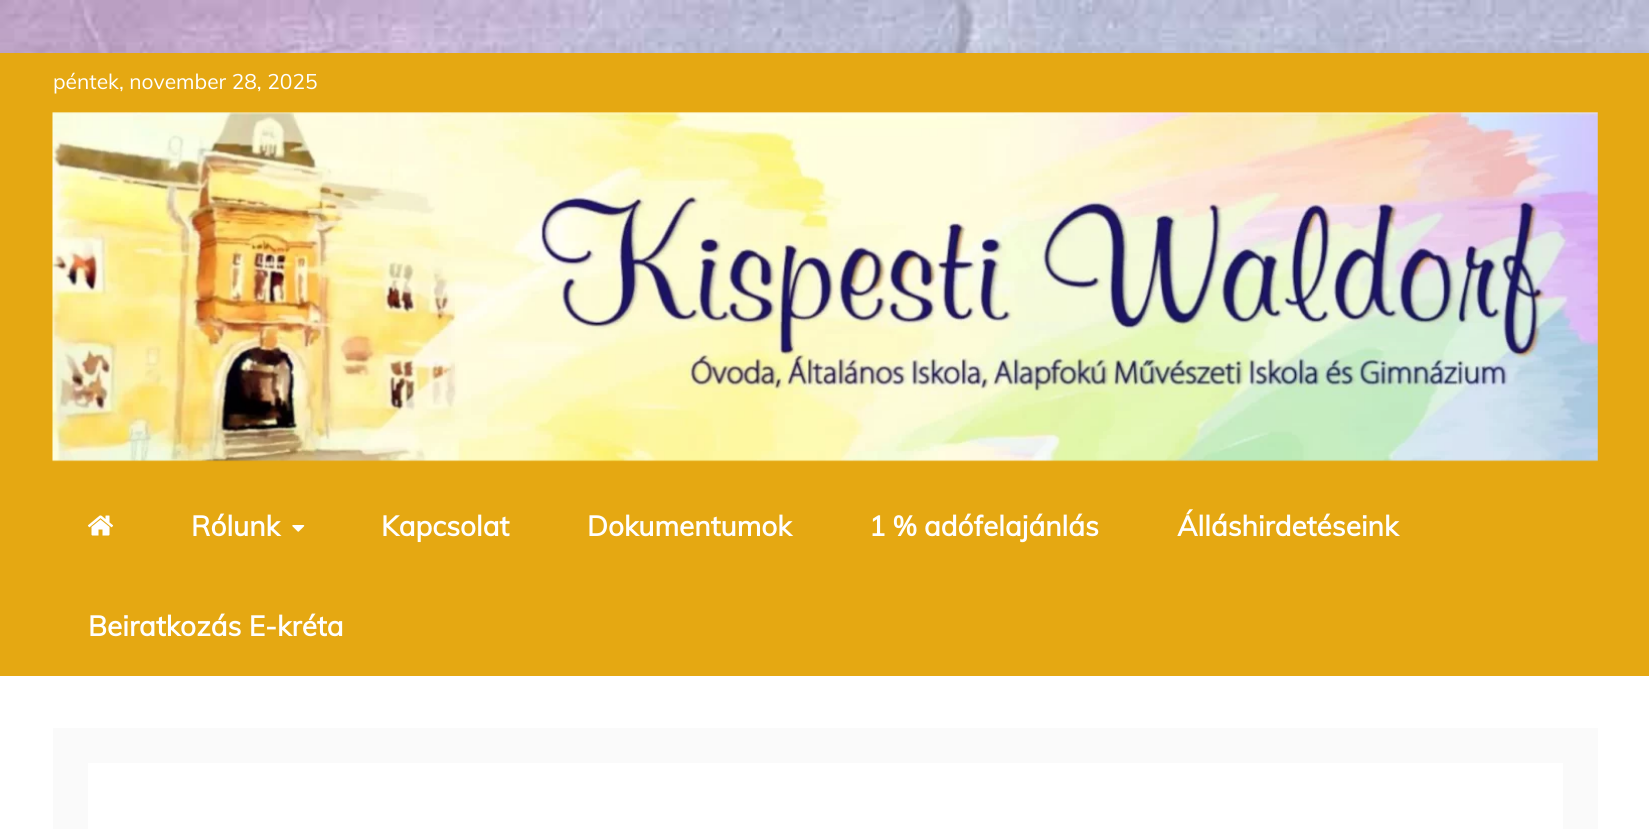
import math
import cairo

surface = cairo.ImageSurface(cairo.FORMAT_RGB24, 1649, 829)
ctx = cairo.Context(surface)
options = cairo.FontOptions()
options.set_hint_metrics(cairo.HINT_METRICS_OFF)
options.set_hint_style(cairo.HINT_STYLE_NONE)
ctx.set_font_options(options)
ctx.set_miter_limit(4)


def round_rect(x, y, w, h, r):
    ctx.new_sub_path()
    for i, (u, v) in enumerate([(x + w - r, y + h - r), (x + r, y + h - r), (x + r, y + r), (x + w - r, y + r)]):
        ctx.arc(u, v, r, i * math.pi / 2, (i + 1) * math.pi / 2)
    ctx.close_path()


def shadow(x, y, w, h, r, blur, alpha):
    ctx.push_group_with_content(cairo.CONTENT_ALPHA)
    ctx.set_operator(cairo.OPERATOR_SOURCE)
    for i in range(15, -16, -2):
        e = blur * i / 6
        if min(w, h) + 2 * e > 0:
            ctx.set_source_rgba(0, 0, 0, alpha * math.erfc((i - 1) / 8.5) / 2)
            round_rect(x - e, y - e, w + 2 * e, h + 2 * e, max(0, min(r + e + blur * .6, min(w, h) / 2 + e)))
            ctx.fill()
    ctx.mask(ctx.pop_group())


def picture(path, x, y, w, h):
    ctx.save()
    ctx.set_source_surface(cairo.ImageSurface.create_from_png(path), x, y)
    ctx.rectangle(x, y, w, h)
    ctx.fill()
    ctx.restore()


ctx.set_source_rgb(1, 1, 1)
ctx.paint()
picture("img1.png", 0, 0, 1649, 53)
ctx.set_source_rgb(0, 0, 0)
shadow(-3, 58, 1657, 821, 0, 16.5, 0.1)
ctx.set_source_rgb(1, 1, 1)
ctx.rectangle(0, 676, 1649, 153)
ctx.fill()
ctx.set_source_rgb(0.898, 0.659, 0.071)
ctx.rectangle(0, 53, 1649, 623)
ctx.fill()
ctx.select_font_face("Muli")
ctx.set_font_size(21)
ctx.set_source_rgb(1, 1, 1)
ctx.move_to(53, 89)
ctx.show_text("péntek, november 28, 2025")
picture("img2.png", 52, 112, 1546, 350)
picture("img3.png", 87, 515, 27, 21)
ctx.select_font_face("Muli", cairo.FONT_SLANT_NORMAL, cairo.FONT_WEIGHT_BOLD)
ctx.set_font_size(28)
ctx.move_to(191, 536)
ctx.show_text("Rólunk")
picture("img4.png", 292, 525, 13, 7)
ctx.move_to(381, 536)
ctx.show_text("Kapcsolat")
ctx.move_to(587, 536)
ctx.show_text("Dokumentumok")
ctx.move_to(869, 536)
ctx.show_text("1 % adófelajánlás")
ctx.move_to(1177, 536)
ctx.show_text("Álláshirdetéseink")
ctx.move_to(88, 636)
ctx.show_text("Beiratkozás E-kréta")
ctx.set_source_rgb(0.98, 0.98, 0.98)
ctx.rectangle(53, 728, 1545, 101)
ctx.fill()
ctx.set_source_rgb(1, 1, 1)
ctx.rectangle(88, 763, 1475, 66)
ctx.fill()
surface.write_to_png("page.png")
